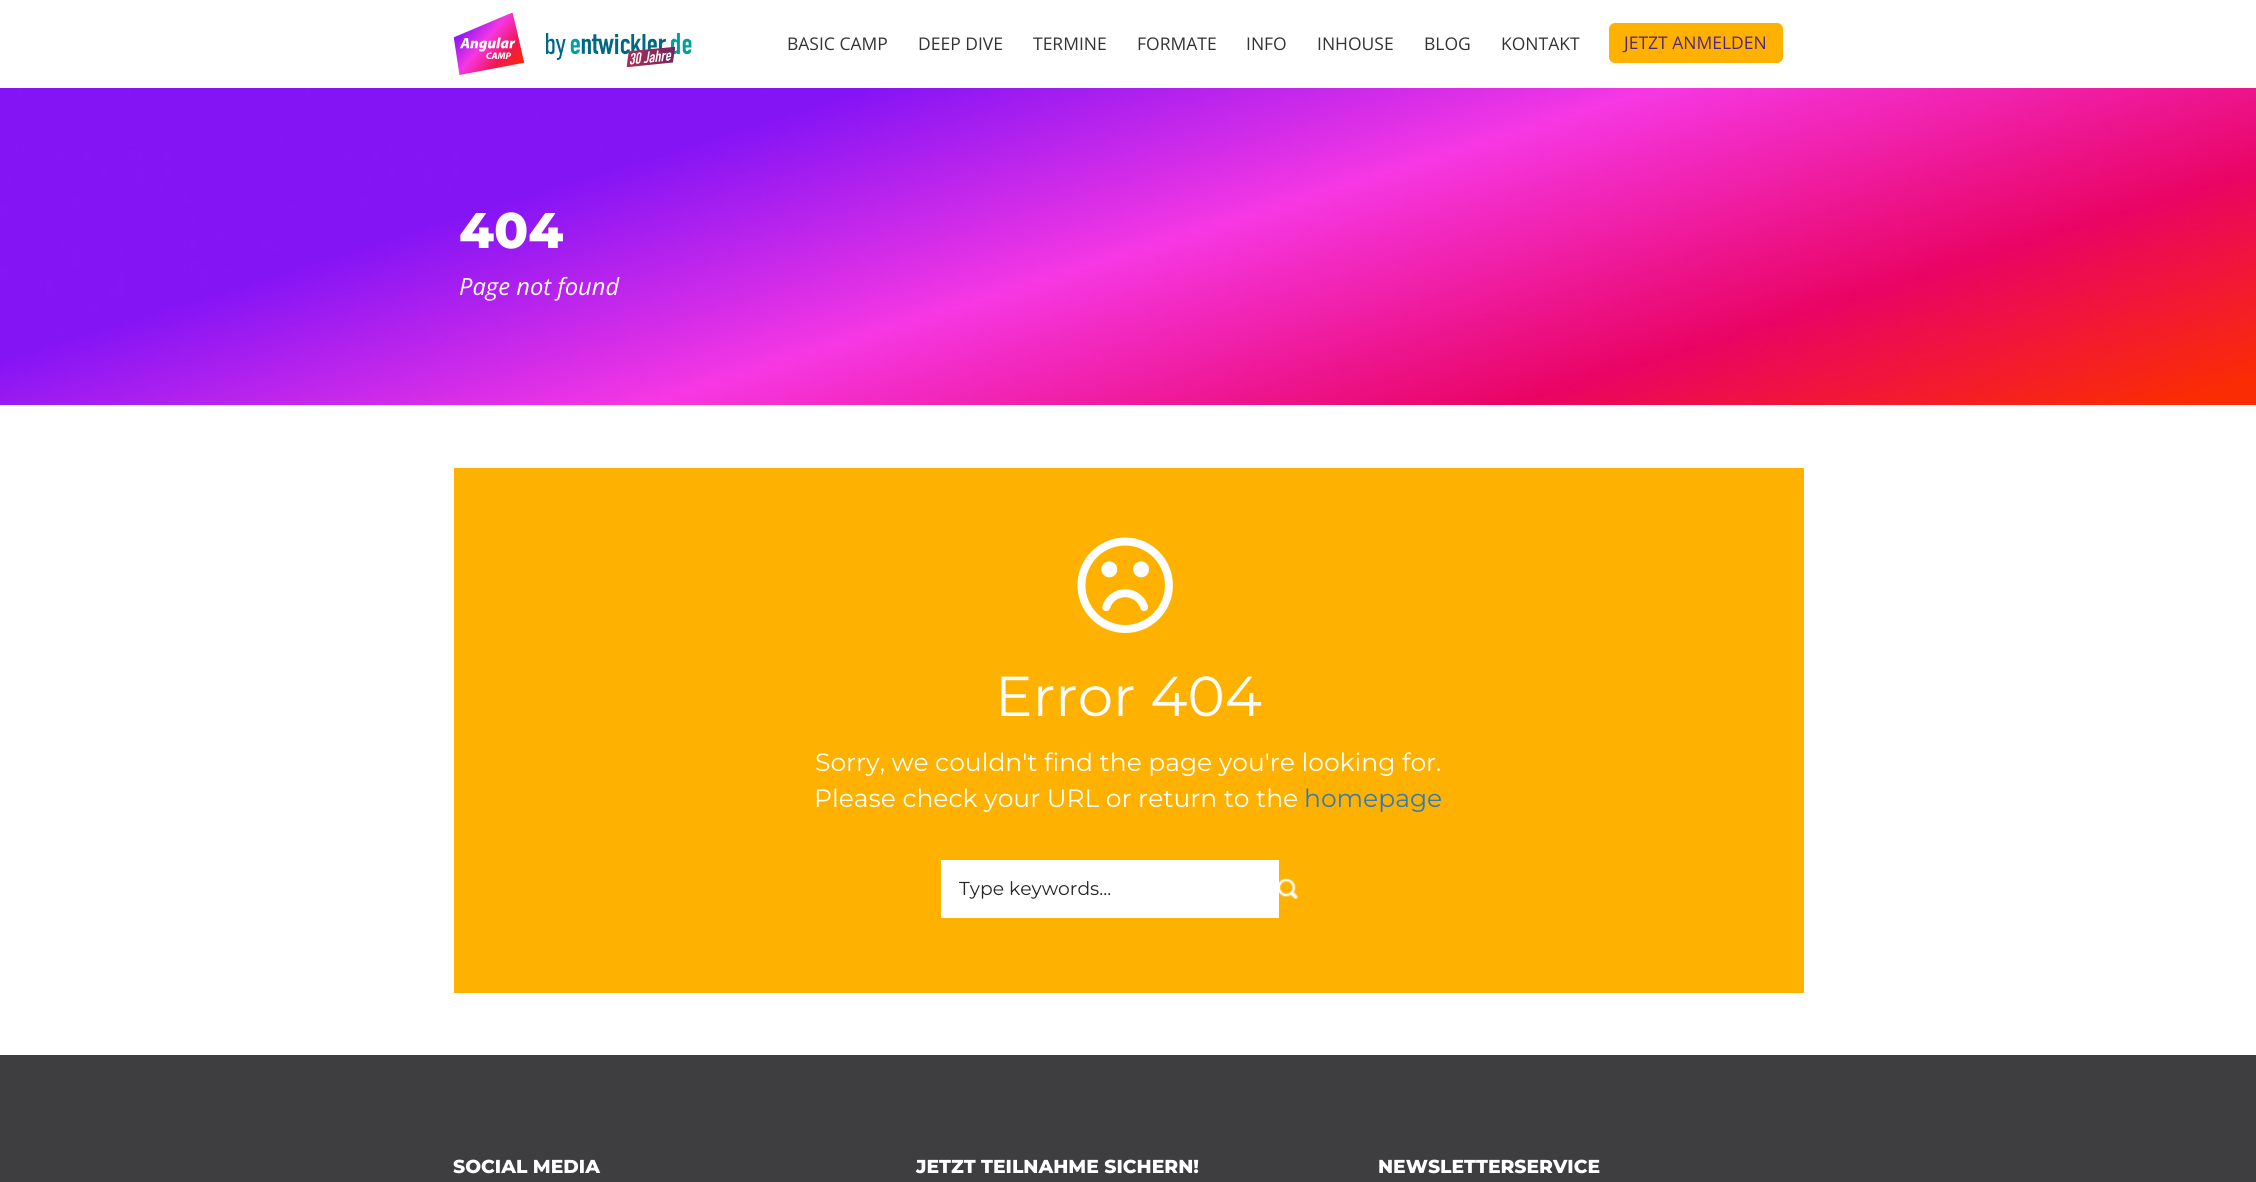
import math
import cairo

surface = cairo.ImageSurface(cairo.FORMAT_RGB24, 2256, 1182)
ctx = cairo.Context(surface)
options = cairo.FontOptions()
options.set_hint_metrics(cairo.HINT_METRICS_OFF)
options.set_hint_style(cairo.HINT_STYLE_NONE)
ctx.set_font_options(options)
ctx.set_miter_limit(4)


def round_rect(x, y, w, h, r):
    ctx.new_sub_path()
    for i, (u, v) in enumerate([(x + w - r, y + h - r), (x + r, y + h - r), (x + r, y + r), (x + w - r, y + r)]):
        ctx.arc(u, v, r, i * math.pi / 2, (i + 1) * math.pi / 2)
    ctx.close_path()


def picture(path, x, y, w, h):
    ctx.save()
    ctx.set_source_surface(cairo.ImageSurface.create_from_png(path), x, y)
    ctx.rectangle(x, y, w, h)
    ctx.fill()
    ctx.restore()


ctx.set_source_rgb(1, 1, 1)
ctx.paint()
picture("img1.png", 454, 13, 238, 62)
ctx.select_font_face("Open Sans")
ctx.set_font_size(17.5)
ctx.set_source_rgb(0.2, 0.2, 0.2)
ctx.move_to(787, 50)
ctx.show_text("BASIC CAMP")
ctx.move_to(918, 50)
ctx.show_text("DEEP DIVE")
ctx.move_to(1033, 50)
ctx.show_text("TERMINE")
ctx.move_to(1137, 50)
ctx.show_text("FORMATE")
ctx.move_to(1246, 50)
ctx.show_text("INFO")
ctx.move_to(1317, 50)
ctx.show_text("INHOUSE")
ctx.move_to(1424, 50)
ctx.show_text("BLOG")
ctx.move_to(1501, 50)
ctx.show_text("KONTAKT")
ctx.set_source_rgb(1, 0.694, 0)
round_rect(1609, 23, 174, 40, 6)
ctx.fill()
ctx.set_source_rgb(0.325, 0.149, 0.502)
ctx.move_to(1624, 49)
ctx.show_text("JETZT ANMELDEN")
picture("img2.png", 0, 88, 2256, 317)
ctx.select_font_face("Montserrat Thin")
ctx.set_font_size(50)
ctx.set_source_rgb(1, 1, 1)
ctx.move_to(459, 248)
ctx.show_text("404")
ctx.select_font_face("Open Sans", cairo.FONT_SLANT_ITALIC)
ctx.set_font_size(23.75)
ctx.move_to(459, 295)
ctx.show_text("Page not found")
ctx.set_source_rgb(1, 0.694, 0)
ctx.rectangle(454, 468, 1350, 525)
ctx.fill()
picture("img3.png", 1077, 537, 96, 96)
ctx.select_font_face("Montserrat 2 Thin")
ctx.set_font_size(56.25)
ctx.set_source_rgb(1, 1, 1)
ctx.move_to(995, 716)
ctx.show_text("Error 404")
ctx.set_font_size(25)
ctx.move_to(815, 771)
ctx.show_text("Sorry, we couldn't find the page you're looking for.")
ctx.move_to(814, 807)
ctx.show_text("Please check your URL or return to the")
ctx.set_source_rgb(0.2, 0.478, 0.718)
ctx.move_to(1304, 807)
ctx.show_text("homepage")
ctx.set_source_rgb(1, 1, 1)
ctx.rectangle(941, 860, 338, 58)
ctx.fill()
ctx.set_font_size(18.75)
ctx.set_source_rgb(0.149, 0.149, 0.157)
ctx.move_to(959, 895)
ctx.show_text("Type keywords...")
picture("img4.png", 1279, 878, 19, 21)
ctx.set_source_rgb(0.243, 0.243, 0.251)
ctx.rectangle(0, 1055, 2256, 127)
ctx.fill()
ctx.select_font_face("Montserrat Thin")
ctx.set_source_rgb(1, 1, 1)
ctx.move_to(453, 1173)
ctx.show_text("SOCIAL MEDIA")
ctx.move_to(916, 1173)
ctx.show_text("JETZT TEILNAHME SICHERN!")
ctx.move_to(1378, 1173)
ctx.show_text("NEWSLETTERSERVICE")
surface.write_to_png("page.png")
